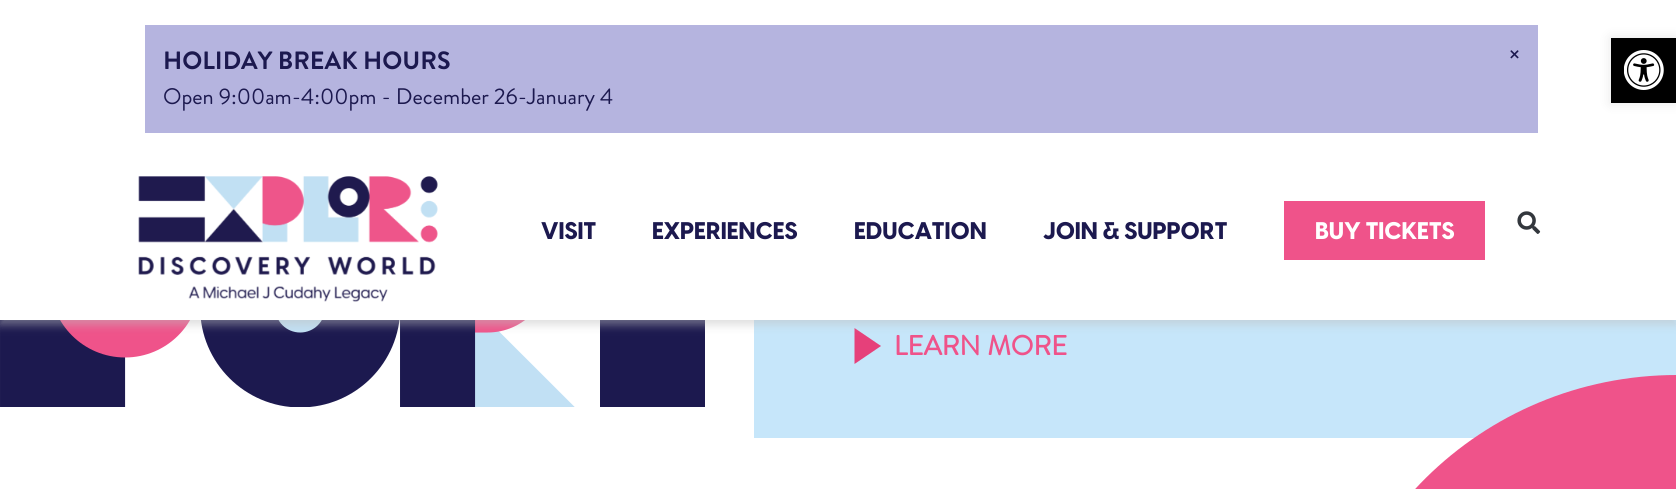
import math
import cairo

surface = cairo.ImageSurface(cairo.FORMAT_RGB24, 1676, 489)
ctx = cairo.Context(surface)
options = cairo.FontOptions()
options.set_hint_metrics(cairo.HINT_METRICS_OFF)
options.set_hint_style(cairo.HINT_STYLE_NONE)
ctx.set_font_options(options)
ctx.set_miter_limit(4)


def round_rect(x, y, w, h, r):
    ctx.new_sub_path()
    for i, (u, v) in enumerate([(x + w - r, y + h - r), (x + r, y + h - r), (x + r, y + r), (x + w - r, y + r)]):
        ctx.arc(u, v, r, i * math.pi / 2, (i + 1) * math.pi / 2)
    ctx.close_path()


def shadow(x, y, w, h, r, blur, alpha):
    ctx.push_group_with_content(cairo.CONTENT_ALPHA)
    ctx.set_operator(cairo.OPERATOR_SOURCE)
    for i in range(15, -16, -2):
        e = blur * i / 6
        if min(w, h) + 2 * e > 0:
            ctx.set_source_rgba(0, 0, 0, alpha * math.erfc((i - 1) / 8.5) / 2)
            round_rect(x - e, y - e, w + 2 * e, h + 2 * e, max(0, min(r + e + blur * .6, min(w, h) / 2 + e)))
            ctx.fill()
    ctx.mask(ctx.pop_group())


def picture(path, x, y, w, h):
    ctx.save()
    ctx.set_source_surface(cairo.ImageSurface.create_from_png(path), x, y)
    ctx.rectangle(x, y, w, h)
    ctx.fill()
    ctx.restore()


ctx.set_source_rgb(1, 1, 1)
ctx.paint()
picture("img4.png", 0, 320, 705, 87)
ctx.set_source_rgb(0.776, 0.902, 0.98)
ctx.rectangle(754, 320, 922, 118)
ctx.fill()
ctx.set_source_rgb(0.902, 0.251, 0.478)
ctx.new_path()
ctx.move_to(881, 346)
ctx.line_to(854.5, 364)
ctx.line_to(854.5, 328)
ctx.close_path()
ctx.fill()
ctx.set_source_rgb(0.745, 0.745, 0.745)
shadow(0, 5, 1676, 320, 0, 4.5, 0.5)
ctx.set_source_rgb(1, 1, 1)
ctx.rectangle(0, 0, 1676, 320)
ctx.fill()
ctx.set_source_rgb(0.71, 0.706, 0.875)
ctx.rectangle(145, 25, 1393, 108)
ctx.fill()
ctx.select_font_face("Brandon Grotesque", cairo.FONT_SLANT_NORMAL, cairo.FONT_WEIGHT_BOLD)
ctx.set_font_size(25)
ctx.set_source_rgb(0.11, 0.098, 0.31)
ctx.move_to(163, 69)
ctx.show_text("HOLIDAY BREAK HOURS")
ctx.select_font_face("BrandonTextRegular")
ctx.move_to(1507, 63)
ctx.show_text("×")
ctx.select_font_face("Brandon Grotesque")
ctx.set_font_size(22.5)
ctx.move_to(163, 104)
ctx.show_text("Open 9:00am-4:00pm - December 26-January 4")
picture("img1.png", 138, 176, 300, 126)
ctx.select_font_face("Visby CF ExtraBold")
ctx.set_font_size(23.75)
ctx.move_to(541, 239)
ctx.show_text("VISIT")
ctx.move_to(652, 239)
ctx.show_text("EXPERIENCES")
ctx.move_to(854, 239)
ctx.show_text("EDUCATION")
ctx.move_to(1043, 239)
ctx.show_text("JOIN & SUPPORT")
ctx.set_source_rgb(0.937, 0.325, 0.541)
ctx.rectangle(1284, 201, 201, 59)
ctx.fill()
ctx.set_source_rgb(1, 1, 1)
ctx.move_to(1315, 239)
ctx.show_text("BUY TICKETS")
picture("img2.png", 1517, 211, 24, 23)
ctx.set_source_rgb(0, 0, 0)
shadow(1611, 38, 65, 65, 0, 6, 0.1)
ctx.set_source_rgb(0, 0, 0)
ctx.rectangle(1611, 38, 65, 65)
ctx.fill()
picture("img3.png", 1624, 50, 40, 40)
ctx.select_font_face("BrandonTextRegular", cairo.FONT_SLANT_NORMAL, cairo.FONT_WEIGHT_BOLD)
ctx.set_font_size(27.5)
ctx.set_source_rgb(0.937, 0.325, 0.541)
ctx.move_to(894, 355)
ctx.show_text("LEARN MORE")
ctx.new_path()
ctx.move_to(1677, 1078)
ctx.line_to(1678, 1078)
ctx.line_to(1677, 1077)
ctx.line_to(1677, 375)
ctx.curve_to(1481, 375, 1322, 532, 1322, 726)
ctx.curve_to(1322, 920, 1481, 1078, 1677, 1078)
ctx.close_path()
ctx.fill()
surface.write_to_png("page.png")
